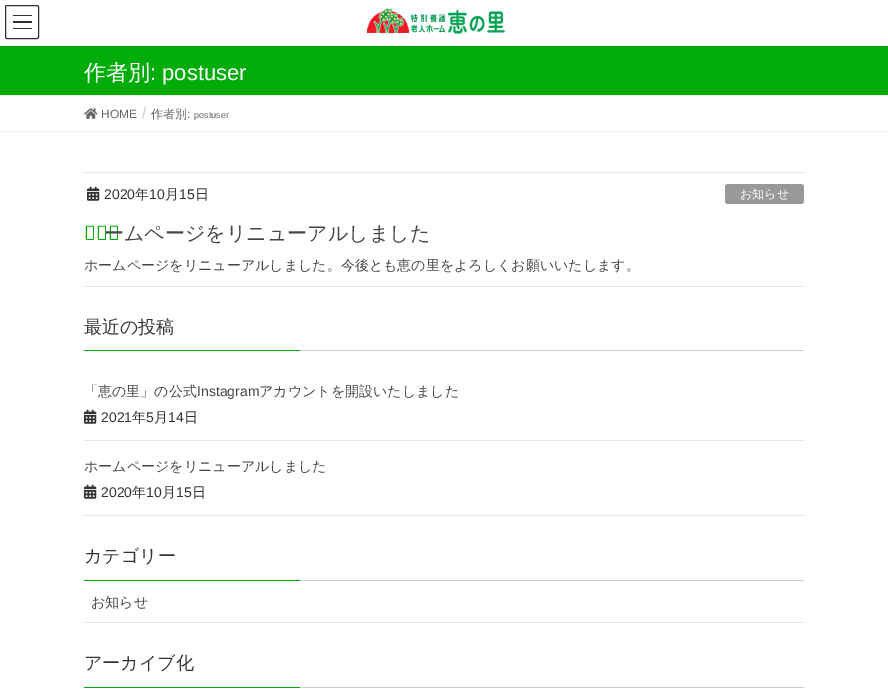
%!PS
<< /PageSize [888 689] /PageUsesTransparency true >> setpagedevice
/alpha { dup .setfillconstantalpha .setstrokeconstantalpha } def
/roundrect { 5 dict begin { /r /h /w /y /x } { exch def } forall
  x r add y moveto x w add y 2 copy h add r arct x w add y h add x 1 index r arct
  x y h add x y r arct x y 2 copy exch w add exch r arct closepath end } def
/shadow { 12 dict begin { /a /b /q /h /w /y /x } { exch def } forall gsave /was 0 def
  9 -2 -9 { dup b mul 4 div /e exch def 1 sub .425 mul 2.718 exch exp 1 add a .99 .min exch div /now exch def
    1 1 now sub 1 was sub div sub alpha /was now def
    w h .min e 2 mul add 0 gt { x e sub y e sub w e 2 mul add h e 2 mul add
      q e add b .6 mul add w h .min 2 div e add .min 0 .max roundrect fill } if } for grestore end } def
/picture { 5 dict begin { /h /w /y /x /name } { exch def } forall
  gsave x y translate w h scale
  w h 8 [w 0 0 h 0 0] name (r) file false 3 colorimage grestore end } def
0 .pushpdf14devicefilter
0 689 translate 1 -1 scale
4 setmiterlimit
1 setgray
0 0 888 689 rectfill
0 0.678 0.031 setrgbcolor
0 46 888 49 rectfill
gsave
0 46 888 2 rectclip
0 setgray
0 1 888 46 0 1.5 0.1 shadow
grestore
(img1.rgb) 367 8 138 26 picture
0.2 setgray
13 15 19 1 rectfill
13 21 19 2 rectfill
13 28 19 1 rectfill
5.5 5.5 33 33 1.5 roundrect stroke
0.933 setgray
0 95 888 1 rectfill
/WenQuanYiZenHei-Medium [22 0 0 -22 0 0] selectfont
1 setgray
84 80 moveto (作者別) show
/LiberationSans-Regular [22 0 0 -22 0 0] selectfont
150 80 moveto (: postuser) show
0.953 setgray
0 131 888 1 rectfill
(img2.rgb) 84 108 14 11 picture
/LiberationSans-Regular [12 0 0 -12 0 0] selectfont
0.4 setgray
101 118 moveto (HOME) show
/LiberationSans-Regular [16 0 0 -16 0 0] selectfont
0.8 setgray
142 118 moveto (/) show
/WenQuanYiZenHei-Medium [12 0 0 -12 0 0] selectfont
0.4 setgray
151 118 moveto (作者別) show
/LiberationSans-Regular [12 0 0 -12 0 0] selectfont
187 118 moveto (:) show
/LiberationSans-Regular [9 0 0 -9 0 0] selectfont
194 118 moveto (postuser) show
0.898 setgray
84 172 720 1 rectfill
84 286 720 1 rectfill
(img3.rgb) 87 186 13 15 picture
/LiberationSans-Regular [14 0 0 -14 0 0] selectfont
0.2 setgray
104 199 moveto (2020) show
/WenQuanYiZenHei-Medium [14 0 0 -14 0 0] selectfont
135 199 moveto (年) show
/LiberationSans-Regular [14 0 0 -14 0 0] selectfont
149 199 moveto (10) show
/WenQuanYiZenHei-Medium [14 0 0 -14 0 0] selectfont
165 199 moveto (月) show
/LiberationSans-Regular [14 0 0 -14 0 0] selectfont
179 199 moveto (15) show
/WenQuanYiZenHei-Medium [14 0 0 -14 0 0] selectfont
195 199 moveto (日) show
0.6 setgray
725 184 79 20 3 roundrect fill
/WenQuanYiZenHei-Medium [12 0 0 -12 0 0] selectfont
1 setgray
740 198 moveto (お知らせ) show
/NotoSans-Regular [20 0 0 -20 0 0] selectfont
0 0.678 0.031 setrgbcolor
84 240 moveto (ホ) show
/WenQuanYiZenHei-Medium [20 0 0 -20 0 0] selectfont
0.275 setgray
104 240 moveto (ームページをリニューアルしました) show
/WenQuanYiZenHei-Medium [14 0 0 -14 0 0] selectfont
84 270 moveto (ホームページをリニューアルしました。今後とも恵の里をよろしくお願いいたします。) show
0.8 setgray
300 350 504 1 rectfill
/WenQuanYiZenHei-Medium [18 0 0 -18 0 0] selectfont
0.2 setgray
84 333 moveto (最近の投稿) show
0 0.678 0.031 setrgbcolor
84 350 216 1 rectfill
0.898 setgray
84 440 720 1 rectfill
/WenQuanYiZenHei-Medium [14 0 0 -14 0 0] selectfont
0.275 setgray
84 396 moveto (「恵の里」の公式) show
/LiberationSans-Regular [14 0 0 -14 0 0] selectfont
197 396 moveto (Instagram) show
/WenQuanYiZenHei-Medium [14 0 0 -14 0 0] selectfont
259 396 moveto (アカウントを開設いたしました) show
(img3.rgb) 84 409 13 15 picture
/LiberationSans-Regular [14 0 0 -14 0 0] selectfont
0.2 setgray
101 422 moveto (2021) show
/WenQuanYiZenHei-Medium [14 0 0 -14 0 0] selectfont
132 422 moveto (年) show
/LiberationSans-Regular [14 0 0 -14 0 0] selectfont
146 422 moveto (5) show
/WenQuanYiZenHei-Medium [14 0 0 -14 0 0] selectfont
154 422 moveto (月) show
/LiberationSans-Regular [14 0 0 -14 0 0] selectfont
168 422 moveto (14) show
/WenQuanYiZenHei-Medium [14 0 0 -14 0 0] selectfont
184 422 moveto (日) show
0.898 setgray
84 515 720 1 rectfill
0.275 setgray
84 471 moveto (ホームページをリニューアルしました) show
(img3.rgb) 84 484 13 15 picture
/LiberationSans-Regular [14 0 0 -14 0 0] selectfont
0.2 setgray
101 497 moveto (2020) show
/WenQuanYiZenHei-Medium [14 0 0 -14 0 0] selectfont
132 497 moveto (年) show
/LiberationSans-Regular [14 0 0 -14 0 0] selectfont
146 497 moveto (10) show
/WenQuanYiZenHei-Medium [14 0 0 -14 0 0] selectfont
162 497 moveto (月) show
/LiberationSans-Regular [14 0 0 -14 0 0] selectfont
176 497 moveto (15) show
/WenQuanYiZenHei-Medium [14 0 0 -14 0 0] selectfont
192 497 moveto (日) show
0.8 setgray
300 580 504 1 rectfill
/WenQuanYiZenHei-Medium [18 0 0 -18 0 0] selectfont
0.2 setgray
84 562 moveto (カテゴリー) show
0 0.678 0.031 setrgbcolor
84 580 216 1 rectfill
0.898 setgray
84 622 720 1 rectfill
/WenQuanYiZenHei-Medium [14 0 0 -14 0 0] selectfont
0.275 setgray
91 607 moveto (お知らせ) show
0.8 setgray
300 687 504 1 rectfill
/WenQuanYiZenHei-Medium [18 0 0 -18 0 0] selectfont
0.2 setgray
84 669 moveto (アーカイブ化) show
0 0.678 0.031 setrgbcolor
84 687 216 1 rectfill
.poppdf14devicefilter showpage
